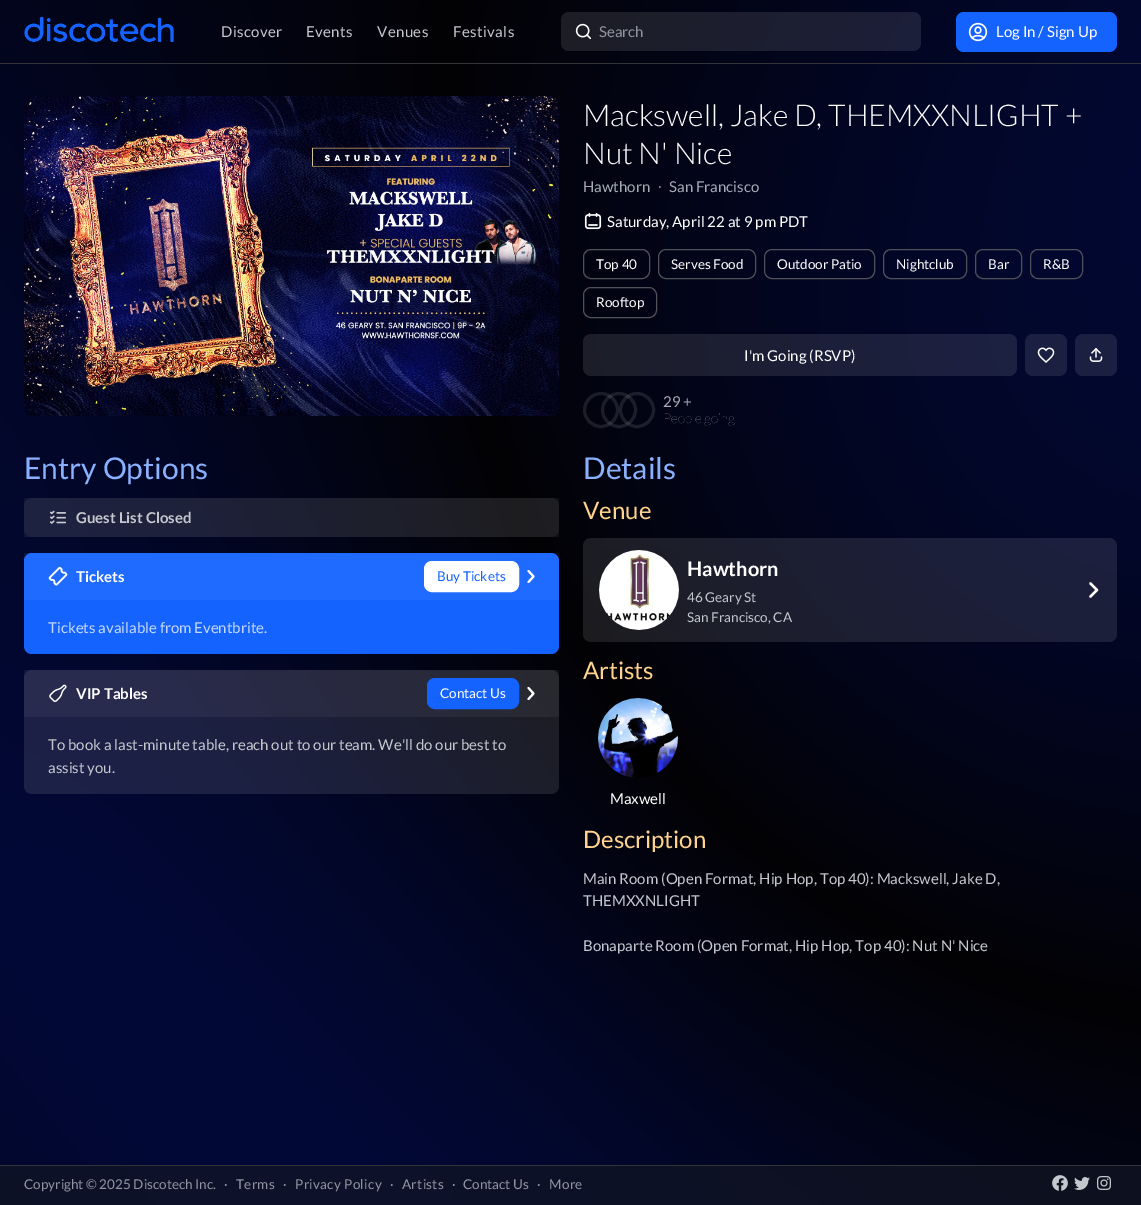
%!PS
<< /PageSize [1141 1205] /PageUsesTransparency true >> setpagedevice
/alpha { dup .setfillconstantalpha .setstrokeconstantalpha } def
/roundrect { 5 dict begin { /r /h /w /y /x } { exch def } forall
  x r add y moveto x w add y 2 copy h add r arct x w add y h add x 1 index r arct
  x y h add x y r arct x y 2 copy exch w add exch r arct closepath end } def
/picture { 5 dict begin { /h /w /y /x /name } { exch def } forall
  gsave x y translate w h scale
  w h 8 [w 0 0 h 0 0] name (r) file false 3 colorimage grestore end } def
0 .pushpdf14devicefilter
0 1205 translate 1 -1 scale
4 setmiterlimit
1 setgray
0 0 1141 1205 rectfill
(img1.rgb) 0 0 1141 1205 picture
0.2 0.2 0.22 setrgbcolor
0 63 1141 1 rectfill
(img2.rgb) 24 17 150 25 picture
/Lato-Regular [15 0 0 -15 0 0] selectfont
0.769 0.78 0.804 setrgbcolor
221 37 moveto 0.4 0 (Discover) ashow
306 37 moveto 0.4 0 (Events) ashow
377 37 moveto 0.4 0 (Venues) ashow
453 37 moveto 0.4 0 (Festivals) ashow
0.1 alpha
1 setgray
561 12 360 39 8 roundrect fill
1 alpha
(img3.rgb) 575 23 17 17 picture
0.565 0.584 0.631 setrgbcolor
599 37 moveto (Search) show
0.078 0.388 1 setrgbcolor
956 12 161 40 8 roundrect fill
(img4.rgb) 968 22 20 20 picture
1 setgray
996 37 moveto (Log In / Sign Up) show
(img5.rgb) 24 96 535 320 picture
/Lato-Light [30 0 0 -30 0 0] selectfont
583 126 moveto (Mackswell, Jake D, THEMXXNLIGHT +) show
583 164 moveto (Nut N' Nice) show
/Lato-Regular [15 0 0 -15 0 0] selectfont
0.651 0.667 0.706 setrgbcolor
583 192 moveto (Hawthorn) show
/LiberationSerif-Regular [15 0 0 -15 0 0] selectfont
658 192 moveto (∙) show
/Lato-Regular [15 0 0 -15 0 0] selectfont
669 192 moveto (San Francisco) show
(img6.rgb) 584 212 18 18 picture
1 setgray
607 227 moveto (Saturday, April 22 at 9 pm PDT) show
0.31 0.318 0.349 setrgbcolor
583.5 249.5 66 29 7.5 roundrect stroke
/Lato-Regular [13.5 0 0 -13.5 0 0] selectfont
1 setgray
596 269 moveto (Top 40) show
0.31 0.318 0.349 setrgbcolor
658.5 249.5 97 29 7.5 roundrect stroke
1 setgray
671 269 moveto (Serves Food) show
0.31 0.318 0.349 setrgbcolor
764.5 249.5 110 29 7.5 roundrect stroke
1 setgray
777 269 moveto (Outdoor Patio) show
0.31 0.318 0.349 setrgbcolor
883.5 249.5 83 29 7.5 roundrect stroke
1 setgray
896 269 moveto (Nightclub) show
0.31 0.318 0.349 setrgbcolor
975.5 249.5 46 29 7.5 roundrect stroke
1 setgray
988 269 moveto (Bar) show
0.31 0.318 0.349 setrgbcolor
1030.5 249.5 52 29 7.5 roundrect stroke
1 setgray
1043 269 moveto (R&B) show
0.31 0.318 0.349 setrgbcolor
583.5 287.5 73 30 7.5 roundrect stroke
1 setgray
596 307 moveto (Rooftop) show
0.1 alpha
583 334 434 42 8 roundrect fill
/Lato-Regular [15 0 0 -15 0 0] selectfont
1 alpha
744 361 moveto (I'm Going \(RSVP\)) show
0.106 0.125 0.259 setrgbcolor
1025 334 42 42 8 roundrect fill
(img7.rgb) 1037 347 18 16 picture
0.106 0.125 0.263 setrgbcolor
1075 334 42 42 8 roundrect fill
(img8.rgb) 1089 348 14 14 picture
0.1 alpha
1 setgray
3 setlinewidth
newpath 601 410 16.5 0 360 arc closepath stroke
newpath 619 410 16.5 0 360 arc closepath stroke
newpath 637 410 16.5 0 360 arc closepath stroke
1 alpha
0.651 0.667 0.706 setrgbcolor
663 407 moveto (29 +) show
/Lato-Thin [13.5 0 0 -13.5 0 0] selectfont
0.769 0.78 0.804 setrgbcolor
663 423 moveto (People going) show
/Lato-Regular [30 0 0 -30 0 0] selectfont
0.541 0.694 1 setrgbcolor
24 479 moveto (Entry Options) show
0.1 alpha
0.588 setgray
24 498 535 39 8 roundrect fill
0.05 alpha
1 setgray
24 498 535 39 rectfill
1 alpha
(img9.rgb) 50 510 16 14 picture
/Lato-Bold [15 0 0 -15 0 0] selectfont
0.769 0.78 0.804 setrgbcolor
76 523 moveto (Guest List Closed) show
0.078 0.388 1 setrgbcolor
24 553 535 101 8 roundrect fill
0.05 alpha
1 setgray
24 553 535 47 rectfill
1 alpha
(img10.rgb) 48 566 20 20 picture
76 582 moveto (Tickets) show
424.5 561.5 94 30 7.5 roundrect gsave fill grestore
1 setlinewidth
stroke
/Lato-Regular [13.5 0 0 -13.5 0 0] selectfont
0.078 0.388 1 setrgbcolor
437 581 moveto (Buy Tickets) show
1 setgray
2 setlinewidth
1 setlinecap
1 setlinejoin
newpath 528.5 582 moveto 533.5 576.5 lineto 528.5 571 lineto stroke
/Lato-Regular [15 0 0 -15 0 0] selectfont
0.769 0.847 1 setrgbcolor
48 633 moveto (Tickets available from Eventbrite.) show
0.1 alpha
1 setgray
24 670 535 124 8 roundrect fill
0.05 alpha
24 670 535 47 rectfill
1 alpha
(img11.rgb) 49 684 18 18 picture
/Lato-Bold [15 0 0 -15 0 0] selectfont
76 699 moveto (VIP Tables) show
0.078 0.388 1 setrgbcolor
427.5 678.5 91 30 7.5 roundrect gsave fill grestore
1 setlinewidth
0 setlinecap
0 setlinejoin
stroke
/Lato-Regular [13.5 0 0 -13.5 0 0] selectfont
1 setgray
440 698 moveto (Contact Us) show
2 setlinewidth
1 setlinecap
1 setlinejoin
newpath 528.5 699 moveto 533.5 693.5 lineto 528.5 688 lineto stroke
/Lato-Regular [15 0 0 -15 0 0] selectfont
0.769 0.78 0.804 setrgbcolor
48 750 moveto (To book a last-minute table, reach out to our team. We'll do our best to) show
48 773 moveto (assist you.) show
/Lato-Regular [30 0 0 -30 0 0] selectfont
0.541 0.694 1 setrgbcolor
583 479 moveto (Details) show
/Lato-Regular [24 0 0 -24 0 0] selectfont
1 0.824 0.553 setrgbcolor
583 519 moveto (Venue) show
0.1 alpha
1 setgray
583 538 534 104 8 roundrect fill
1 alpha
(img12.rgb) 599 550 80 80 picture
/Lato-Bold [20 0 0 -20 0 0] selectfont
687 576 moveto (Hawthorn) show
/Lato-Regular [13.5 0 0 -13.5 0 0] selectfont
0.769 0.78 0.804 setrgbcolor
687 602 moveto (46 Geary St) show
687 622 moveto (San Francisco, CA) show
1 setgray
2.4 setlinewidth
newpath 1090.5 596.5 moveto 1097 590 lineto 1090.5 583.5 lineto stroke
/Lato-Regular [24 0 0 -24 0 0] selectfont
1 0.824 0.553 setrgbcolor
583 679 moveto (Artists) show
(img13.rgb) 598 698 80 80 picture
/Lato-Regular [15 0 0 -15 0 0] selectfont
1 setgray
610 804 moveto (Maxwell) show
/Lato-Regular [24 0 0 -24 0 0] selectfont
1 0.824 0.553 setrgbcolor
583 848 moveto (Description) show
/Lato-Regular [15 0 0 -15 0 0] selectfont
0.769 0.78 0.804 setrgbcolor
583 884 moveto (Main Room \(Open Format, Hip Hop, Top 40\): Mackswell, Jake D,) show
583 906 moveto (THEMXXNLIGHT) show
583 951 moveto (Bonaparte Room \(Open Format, Hip Hop, Top 40\): Nut N' Nice) show
0.66 alpha
0.071 0.086 0.137 setrgbcolor
0 1166 1141 39 rectfill
1 alpha
0.2 0.2 0.22 setrgbcolor
0 1165 1141 1 rectfill
/Lato-Regular [13.5 0 0 -13.5 0 0] selectfont
0.565 0.584 0.631 setrgbcolor
24 1189 moveto (Copyright © 2025 Discotech Inc.) show
224 1189 moveto (·) show
236 1189 moveto 0.3 0 (Terms) ashow
283 1189 moveto (·) show
295 1189 moveto 0.3 0 (Privacy Policy) ashow
390 1189 moveto (·) show
402 1189 moveto 0.3 0 (Artists) ashow
452 1189 moveto (·) show
463 1189 moveto (Contact Us) show
537 1189 moveto (·) show
549 1189 moveto 0.3 0 (More) ashow
(img14.rgb) 1052 1175 16 16 picture
(img15.rgb) 1074 1177 16 13 picture
(img16.rgb) 1097 1176 14 14 picture
.poppdf14devicefilter showpage
